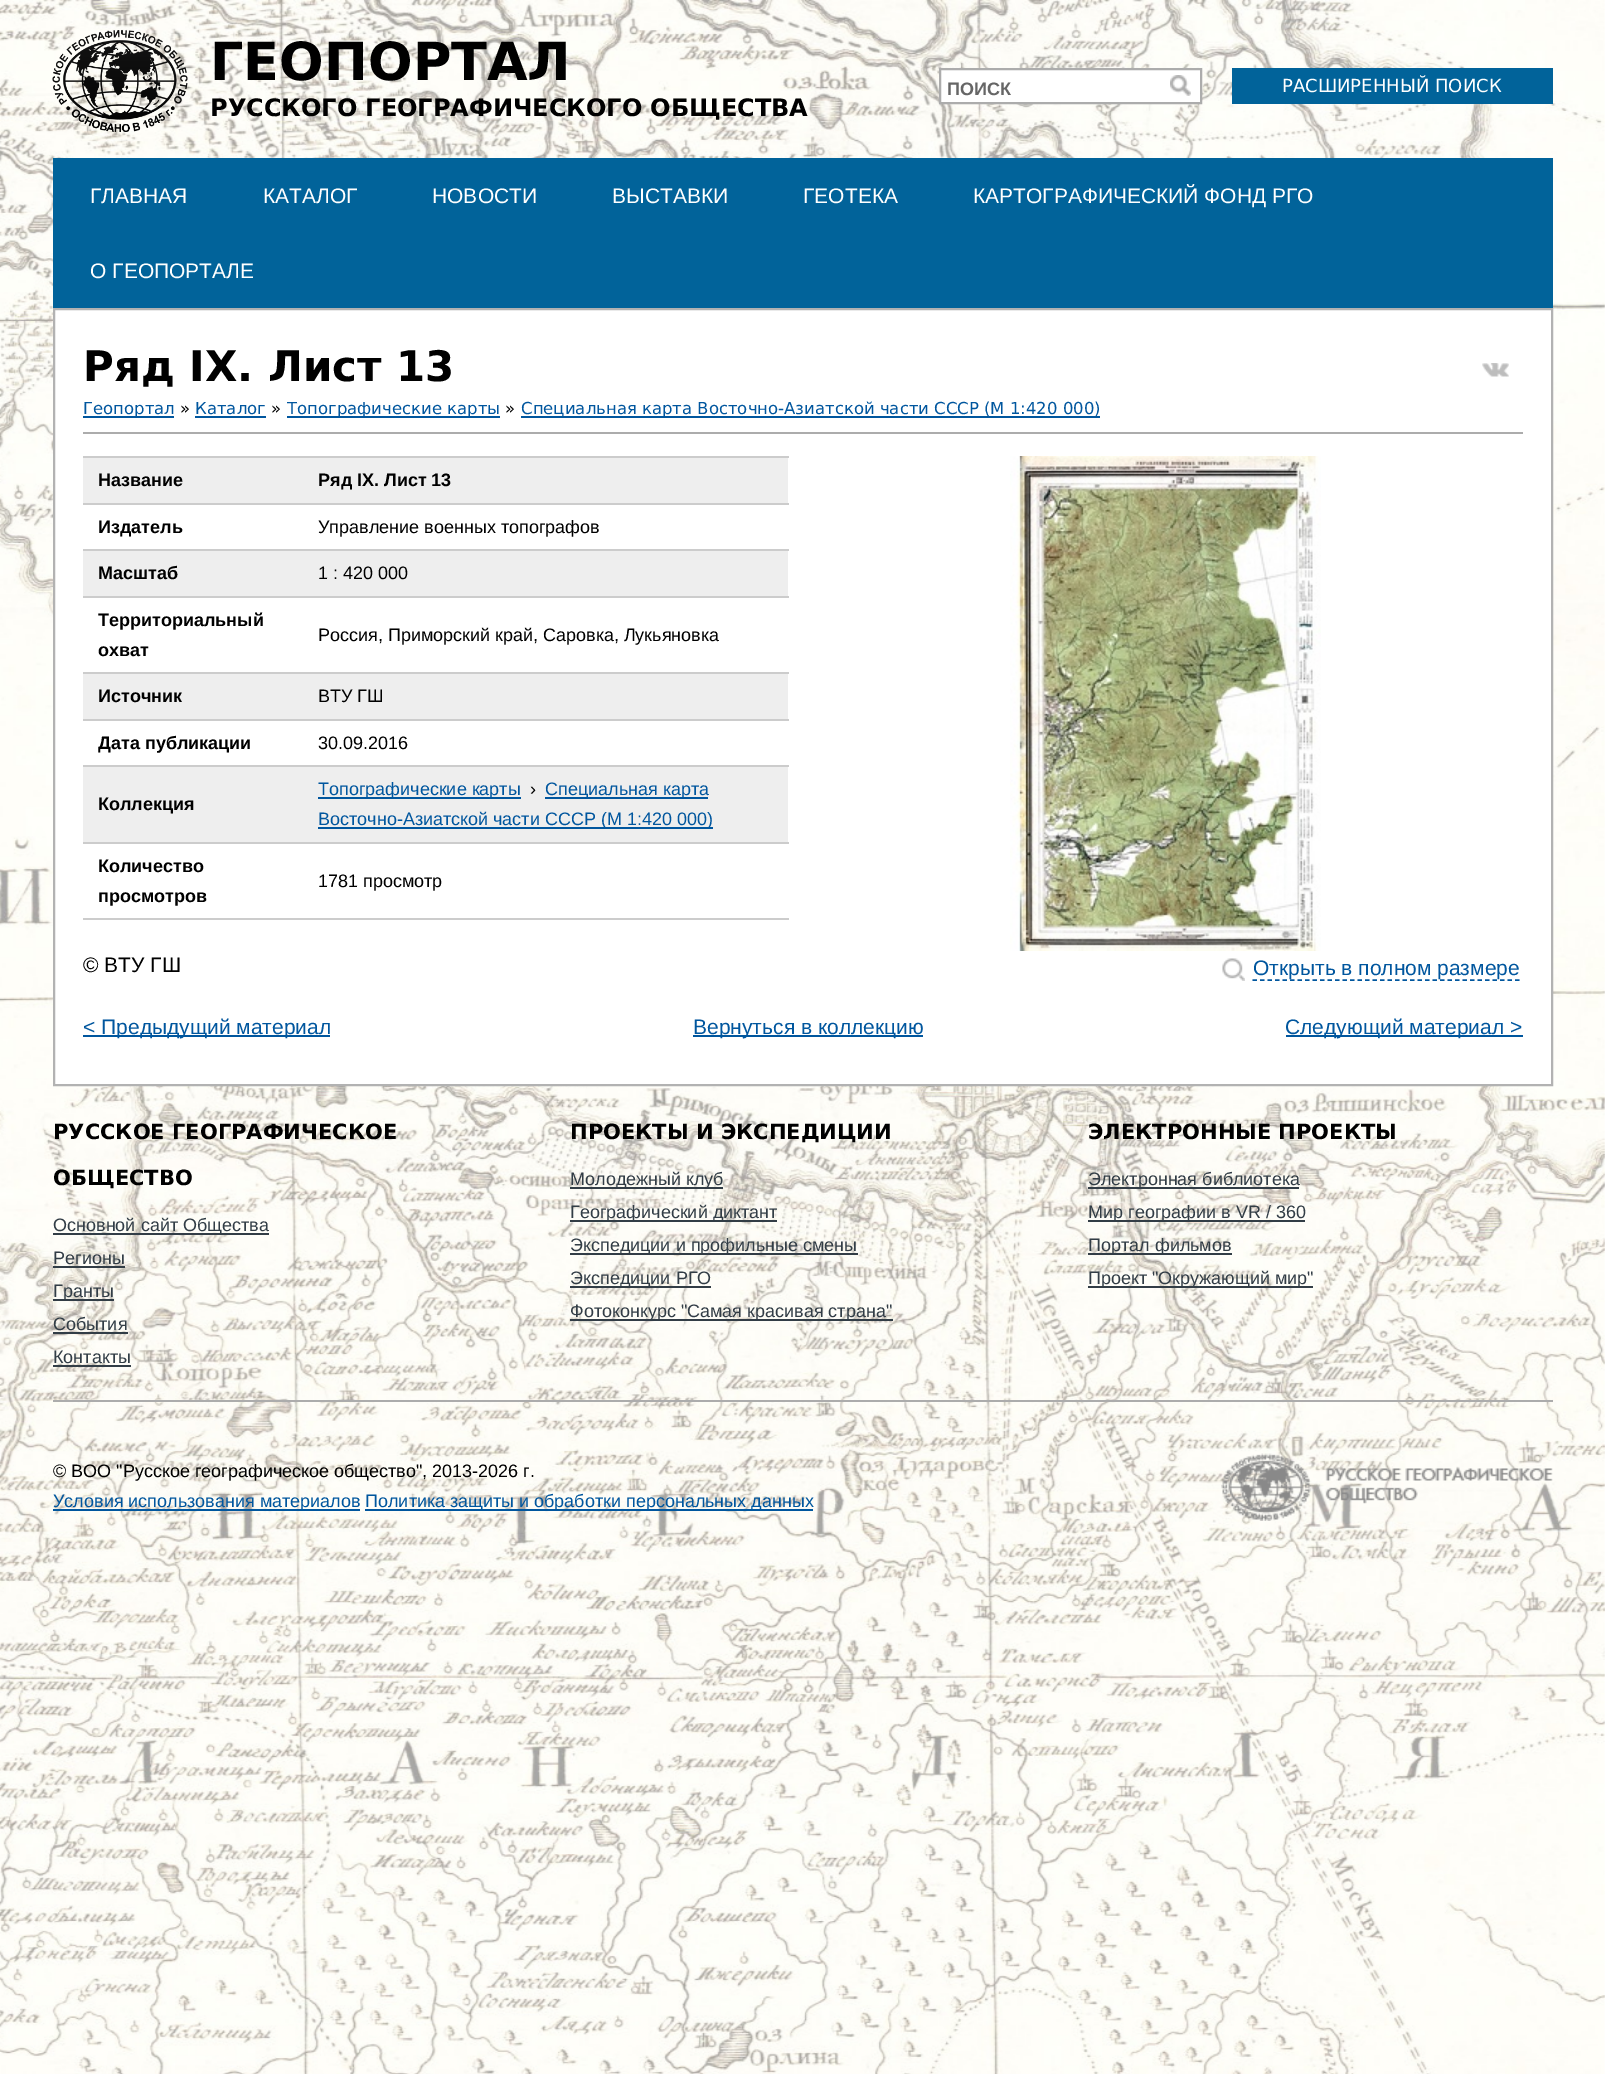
%!PS
<< /PageSize [1605 2074] >> setpagedevice
/picture { 5 dict begin { /h /w /y /x /name } { exch def } forall
  gsave x y translate w h scale
  w h 8 [w 0 0 h 0 0] name (r) file false 3 colorimage grestore end } def
0 2074 translate 1 -1 scale
4 setmiterlimit
1 setgray
0 0 1605 2074 rectfill
(img1.rgb) 0 0 1605 2074 picture
(img2.rgb) 52 30 136 102 picture
/DejaVuSans-Bold [52.5 0 0 -52.5 0 0] selectfont
0 setgray
210 80 moveto (ГЕОПОРТАЛ) show
/DejaVuSans-Bold [24 0 0 -24 0 0] selectfont
210 116 moveto (РУССКОГО ГЕОГРАФИЧЕСКОГО ОБЩЕСТВА) show
1 setgray
newpath 940 69 moveto 1201 69 lineto 1201 103 lineto 940 103 lineto closepath gsave fill grestore
0.675 setgray
2 setlinewidth
stroke
/LiberationSans-Bold [18 0 0 -18 0 0] selectfont
0.4 setgray
947 95 moveto (ПОИСК) show
(img3.rgb) 1170 75 21 21 picture
0.004 0.388 0.604 setrgbcolor
1232 68 321 36 rectfill
/DejaVuSans-Regular [18 0 0 -18 0 0] selectfont
1 setgray
1282 92 moveto (РАСШИРЕННЫЙ ПОИСК) show
0.004 0.388 0.604 setrgbcolor
53 158 1500 150 rectfill
/LiberationSans-Regular [21 0 0 -21 0 0] selectfont
1 setgray
90 203 moveto (ГЛАВНАЯ) show
263 203 moveto (КАТАЛОГ) show
432 203 moveto (НОВОСТИ) show
612 203 moveto (ВЫСТАВКИ) show
803 203 moveto (ГЕОТЕКА) show
973 203 moveto (КАРТОГРАФИЧЕСКИЙ ФОНД РГО) show
90 278 moveto (О ГЕОПОРТАЛЕ) show
newpath 54 309 moveto 1552 309 lineto 1552 1085 lineto 54 1085 lineto closepath gsave fill grestore
0.698 setgray
stroke
/DejaVuSans-Bold [42 0 0 -42 0 0] selectfont
0 setgray
83 381 moveto (Ряд IX. Лист 13) show
(img4.rgb) 1482 363 27 14 picture
0 0.337 0.62 setrgbcolor
83 416 91 2 rectfill
/DejaVuSans-Regular [16.5 0 0 -16.5 0 0] selectfont
83 414 moveto (Геопортал) show
0 setgray
180 414 moveto (») show
0 0.337 0.62 setrgbcolor
195 414 moveto (Каталог) show
195 416 71 2 rectfill
0 setgray
271 414 moveto (») show
0 0.337 0.62 setrgbcolor
287 416 213 2 rectfill
287 414 moveto (Топографические карты) show
0 setgray
505 414 moveto (») show
0 0.337 0.62 setrgbcolor
521 416 579 2 rectfill
521 414 moveto (Специальная карта Восточно-Азиатской части СССР \(М 1:420 000\)) show
0.675 setgray
83 432 1440 2 rectfill
0.933 setgray
83 458 705 45 rectfill
0.8 setgray
83 456 706 2 rectfill
/LiberationSans-Bold [18 0 0 -18 0 0] selectfont
0 setgray
98 486 moveto (Название) show
318 486 moveto (Ряд IX. Лист 13) show
0.8 setgray
83 503 706 2 rectfill
0 setgray
98 533 moveto (Издатель) show
/LiberationSans-Regular [18 0 0 -18 0 0] selectfont
318 533 moveto (Управление военных топографов) show
0.933 setgray
83 551 705 45 rectfill
0.8 setgray
83 549 706 2 rectfill
/LiberationSans-Bold [18 0 0 -18 0 0] selectfont
0 setgray
98 579 moveto (Масштаб) show
/LiberationSans-Regular [18 0 0 -18 0 0] selectfont
318 579 moveto (1 : 420 000) show
0.8 setgray
83 596 706 2 rectfill
/LiberationSans-Bold [18 0 0 -18 0 0] selectfont
0 setgray
98 626 moveto (Территориальный) show
98 656 moveto (охват) show
/LiberationSans-Regular [18 0 0 -18 0 0] selectfont
318 641 moveto (Россия, Приморский край, Саровка, Лукьяновка) show
0.933 setgray
83 674 705 45 rectfill
0.8 setgray
83 672 706 2 rectfill
/LiberationSans-Bold [18 0 0 -18 0 0] selectfont
0 setgray
98 702 moveto (Источник) show
/LiberationSans-Regular [18 0 0 -18 0 0] selectfont
318 702 moveto (ВТУ ГШ) show
0.8 setgray
83 719 706 2 rectfill
/LiberationSans-Bold [18 0 0 -18 0 0] selectfont
0 setgray
98 749 moveto (Дата публикации) show
/LiberationSans-Regular [18 0 0 -18 0 0] selectfont
318 749 moveto (30.09.2016) show
0.933 setgray
83 767 705 75 rectfill
0.8 setgray
83 765 706 2 rectfill
/LiberationSans-Bold [18 0 0 -18 0 0] selectfont
0 setgray
98 810 moveto (Коллекция) show
0 0.337 0.62 setrgbcolor
318 797 203 2 rectfill
/LiberationSans-Regular [18 0 0 -18 0 0] selectfont
318 795 moveto (Топографические карты) show
0 setgray
530 795 moveto (›) show
0 0.337 0.62 setrgbcolor
545 797 163 2 rectfill
545 795 moveto (Специальная карта) show
318 827 395 2 rectfill
318 825 moveto (Восточно-Азиатской части СССР \(М 1:420 000\)) show
0.8 setgray
83 842 706 2 rectfill
83 918 706 2 rectfill
/LiberationSans-Bold [18 0 0 -18 0 0] selectfont
0 setgray
98 872 moveto (Количество) show
98 902 moveto (просмотров) show
/LiberationSans-Regular [18 0 0 -18 0 0] selectfont
318 887 moveto (1781 просмотр) show
/LiberationSans-Regular [21 0 0 -21 0 0] selectfont
83 972 moveto (© ВТУ ГШ) show
(img5.rgb) 1010 456 311 495 picture
(img6.rgb) 1222 958 23 23 picture
0 0.337 0.62 setrgbcolor
1.5 setlinewidth
[4.5 3] 0 setdash
newpath 1252.5 980 moveto 1519.5 980 lineto stroke
1253 975 moveto (Открыть в полном размере) show
83 1035 247 2 rectfill
83 1034 moveto (< Предыдущий материал) show
693 1035 230 2 rectfill
693 1034 moveto (Вернуться в коллекцию) show
1286 1035 237 2 rectfill
1285 1034 moveto (Следующий материал >) show
0.675 setgray
53 1400 1500 2 rectfill
/DejaVuSans-Bold [21 0 0 -21 0 0] selectfont
0 setgray
53 1139 moveto (РУССКОЕ ГЕОГРАФИЧЕСКОЕ) show
53 1185 moveto (ОБЩЕСТВО) show
0.196 0.239 0.275 setrgbcolor
53 1233 216 2 rectfill
/LiberationSans-Regular [18 0 0 -18 0 0] selectfont
53 1231 moveto (Основной сайт Общества) show
53 1264 moveto (Регионы) show
53 1266 72 2 rectfill
53 1299 61 2 rectfill
53 1297 moveto (Гранты) show
53 1330 moveto (События) show
53 1332 75 2 rectfill
53 1363 moveto (Контакты) show
53 1365 78 2 rectfill
/DejaVuSans-Bold [21 0 0 -21 0 0] selectfont
0 setgray
570 1139 moveto (ПРОЕКТЫ И ЭКСПЕДИЦИИ) show
0.196 0.239 0.275 setrgbcolor
570 1187 153 2 rectfill
/LiberationSans-Regular [18 0 0 -18 0 0] selectfont
570 1185 moveto (Молодежный клуб) show
570 1220 207 2 rectfill
570 1218 moveto (Географический диктант) show
570 1253 288 2 rectfill
570 1251 moveto (Экспедиции и профильные смены) show
570 1286 141 2 rectfill
570 1284 moveto (Экспедиции РГО) show
570 1319 323 2 rectfill
570 1317 moveto (Фотоконкурс "Самая красивая страна") show
/DejaVuSans-Bold [21 0 0 -21 0 0] selectfont
0 setgray
1088 1139 moveto (ЭЛЕКТРОННЫЕ ПРОЕКТЫ) show
0.196 0.239 0.275 setrgbcolor
1088 1187 211 2 rectfill
/LiberationSans-Regular [18 0 0 -18 0 0] selectfont
1088 1185 moveto (Электронная библиотека) show
1088 1220 217 2 rectfill
1088 1218 moveto (Мир географии в VR / 360) show
1088 1253 144 2 rectfill
1088 1251 moveto (Портал фильмов) show
1088 1286 225 2 rectfill
1088 1284 moveto (Проект "Окружающий мир") show
gsave
53 1424 1500 127 rectclip
0 setgray
53 1477 moveto (© ВОО "Русское географическое общество", 2013-2026 г.) show
grestore
0 0.337 0.62 setrgbcolor
53 1509 307 2 rectfill
53 1507 moveto (Условия использования материалов) show
365 1509 448 2 rectfill
365 1507 moveto (Политика защиты и обработки персональных данных) show
(img7.rgb) 1221 1453 332 68 picture
showpage
